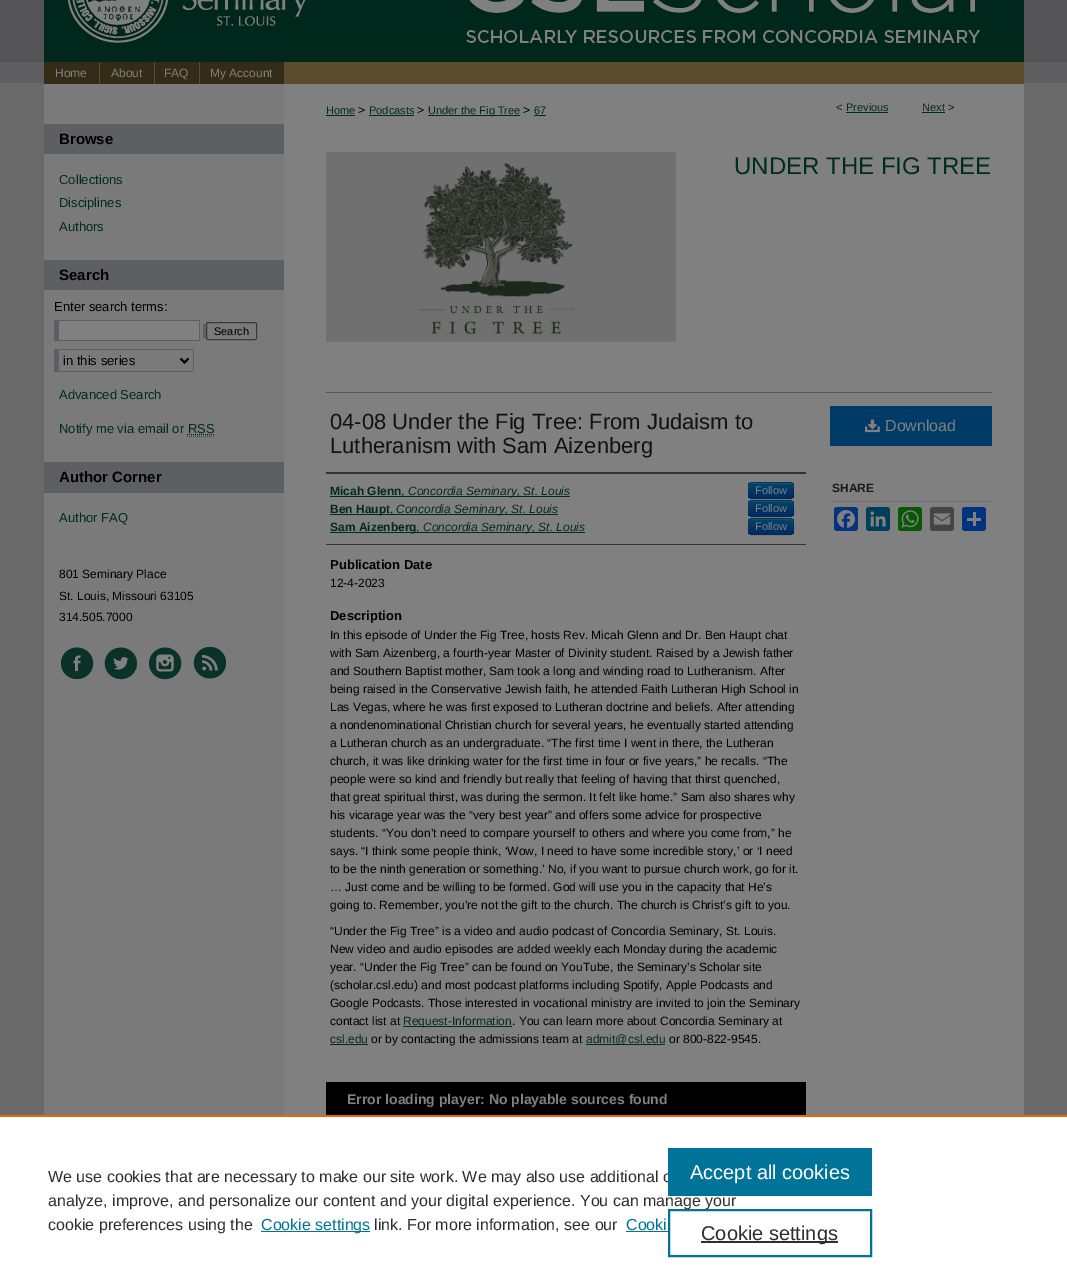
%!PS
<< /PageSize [1067 1285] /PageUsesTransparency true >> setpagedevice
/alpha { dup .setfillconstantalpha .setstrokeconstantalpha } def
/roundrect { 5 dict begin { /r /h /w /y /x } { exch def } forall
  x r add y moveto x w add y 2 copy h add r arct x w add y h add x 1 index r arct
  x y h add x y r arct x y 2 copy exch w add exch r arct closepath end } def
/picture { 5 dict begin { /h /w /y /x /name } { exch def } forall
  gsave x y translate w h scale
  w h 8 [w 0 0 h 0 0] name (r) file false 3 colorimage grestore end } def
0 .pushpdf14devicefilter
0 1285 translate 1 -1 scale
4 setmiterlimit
0.412 0.412 0.416 setrgbcolor
0 0 1067 1285 rectfill
(img1.rgb) 0 0 1067 83 picture
(img2.rgb) 44 0 280 62 picture
(img3.rgb) 324 0 700 62 picture
0.357 0.298 0.176 setrgbcolor
284 62 740 22 rectfill
0.2 0.173 0.098 setrgbcolor
44 62 55 22 rectfill
0.357 0.298 0.176 setrgbcolor
99 62 1 22 rectfill
/LiberationSans-Regular [12 0 0 -12 0 0] selectfont
0.502 setgray
55 77 moveto (Home) show
0.2 0.173 0.098 setrgbcolor
100 62 54 22 rectfill
0.357 0.298 0.176 setrgbcolor
154 62 1 22 rectfill
0.502 setgray
111 77 moveto (About) show
0.2 0.173 0.098 setrgbcolor
155 62 44 22 rectfill
0.357 0.298 0.176 setrgbcolor
199 62 1 22 rectfill
0.502 setgray
164 77 moveto (FAQ) show
0.2 0.173 0.098 setrgbcolor
200 62 84 22 rectfill
0.502 setgray
210 77 moveto (My Account) show
0.478 setgray
44 84 240 1031 rectfill
0.502 setgray
284 84 740 1031 rectfill
0.369 0.373 0.376 setrgbcolor
44 124 240 30 rectfill
/LiberationSans-Bold [15 0 0 -15 0 0] selectfont
0 setgray
59 144 moveto (Browse) show
/LiberationSans-Regular [13 0 0 -13 0 0] selectfont
0 0.173 0.122 setrgbcolor
59 184 moveto (Collections) show
59 207 moveto (Disciplines) show
59 231 moveto (Authors) show
0.369 0.373 0.376 setrgbcolor
44 260 240 30 rectfill
/LiberationSans-Bold [15 0 0 -15 0 0] selectfont
0 setgray
59 280 moveto (Search) show
/LiberationSans-Regular [13 0 0 -13 0 0] selectfont
54 311 moveto (Enter search terms:) show
0.369 0.373 0.376 setrgbcolor
54 320 146 21 rectfill
203 324 3 14 rectfill
0.502 setgray
59 321 140 19 rectfill
0.231 setgray
206.5 322.5 50 17 1.5 roundrect stroke
/LiberationSans-Regular [11 0 0 -11 0 0] selectfont
0 setgray
214 335 moveto (Search) show
0.369 0.373 0.376 setrgbcolor
54 349 140 1 rectfill
193 349 1 23 rectfill
54 371 140 1 rectfill
54 349 5 23 rectfill
0 setgray
2 setlinewidth
newpath 180.5 358.5 moveto 184.5 362.5 lineto 188.5 358.5 lineto stroke
/LiberationSans-Regular [13 0 0 -13 0 0] selectfont
63 365 moveto (in this series) show
0 0.173 0.122 setrgbcolor
59 399 moveto (Advanced Search) show
59 433 moveto (Notify me via email or RSS) show
1 setlinewidth
[1 1] 0 setdash
newpath 187 434.5 moveto 214 434.5 lineto stroke
0.302 setgray
newpath 187 436.5 moveto 214 436.5 lineto stroke
0.369 0.373 0.376 setrgbcolor
44 462 240 31 rectfill
/LiberationSans-Bold [15 0 0 -15 0 0] selectfont
0 setgray
59 482 moveto (Author Corner) show
/LiberationSans-Regular [13 0 0 -13 0 0] selectfont
0 0.173 0.122 setrgbcolor
59 522 moveto (Author FAQ) show
/LiberationSans-Regular [12 0 0 -12 0 0] selectfont
0 setgray
59 578 moveto (801 Seminary Place) show
59 600 moveto (St. Louis, Missouri 63105) show
59 621 moveto (314.505.7000) show
(img4.rgb) 61 647 33 32 picture
(img5.rgb) 104 647 33 33 picture
(img6.rgb) 149 647 33 33 picture
(img7.rgb) 193 647 33 32 picture
/LiberationSans-Regular [11 0 0 -11 0 0] selectfont
0 0.173 0.122 setrgbcolor
326 114 moveto (Home) show
326 115 29 1 rectfill
/LiberationSans-Regular [12 0 0 -12 0 0] selectfont
0 setgray
358 114 moveto (>) show
/LiberationSans-Regular [11 0 0 -11 0 0] selectfont
0 0.173 0.122 setrgbcolor
369 114 moveto (Podcasts) show
369 115 45 1 rectfill
/LiberationSans-Regular [12 0 0 -12 0 0] selectfont
0 setgray
417 114 moveto (>) show
0 0.173 0.122 setrgbcolor
428 115 92 1 rectfill
/LiberationSans-Regular [11 0 0 -11 0 0] selectfont
428 114 moveto (Under the Fig Tree) show
/LiberationSans-Regular [12 0 0 -12 0 0] selectfont
0 setgray
523 114 moveto (>) show
/LiberationSans-Regular [11 0 0 -11 0 0] selectfont
0 0.173 0.122 setrgbcolor
534 114 moveto (67) show
534 115 12 1 rectfill
0.067 setgray
836 111 moveto (<) show
0 0.173 0.122 setrgbcolor
846 111 moveto (Previous) show
846 112 42 1 rectfill
922 111 moveto (Next) show
922 112 23 1 rectfill
0.067 setgray
948 111 moveto (>) show
(img8.rgb) 326 152 350 190 picture
/LiberationSans-Regular [24 0 0 -24 0 0] selectfont
0 0.173 0.122 setrgbcolor
734 174 moveto (UNDER THE FIG TREE) show
0.333 setgray
326 392 666 1 rectfill
/LiberationSans-Regular [22 0 0 -22 0 0] selectfont
0.067 setgray
330 429 moveto (04-08 Under the Fig Tree: From Judaism to) show
330 453 moveto (Lutheranism with Sam Aizenberg) show
0.2 setgray
326 472 480 2 rectfill
326 544 480 1 rectfill
/LiberationSans-Bold [12 0 0 -12 0 0] selectfont
0 0.173 0.122 setrgbcolor
330 495 moveto (Micah Glenn) show
330 496 240 1 rectfill
/LiberationSans-Regular [12 0 0 -12 0 0] selectfont
401 495 moveto (,) show
/LiberationSans-Italic [12 0 0 -12 0 0] selectfont
408 495 moveto (Concordia Seminary, St. Louis) show
0 0.227 0.4 setrgbcolor
748 482 46 17 4 roundrect fill
gsave
748 482 46 17 4 roundrect clip newpath
gsave newpath 748 483 moveto 794 483 lineto 794 498 lineto 748 498 lineto closepath clip newpath
<< /ShadingType 2 /ColorSpace /DeviceRGB /Coords [771 483 771 498] /Extend [true true] /Function << /FunctionType 2 /Domain [0 1] /C0 [0 0.267 0.4] /C1 [0 0.169 0.4] /N 1 >> >> shfill grestore
grestore
0.2 alpha
0.502 setgray
newpath 752 484 moveto 785 484 lineto 792 484 793 484 793 490 curveto 793 496 lineto 793 489 lineto 793 482 791 483 784 483 curveto 758 483 lineto 751 483 749 482 749 489 curveto 749 497 lineto 749 494 747 484 752 484 curveto closepath fill
0.25 alpha
0 setgray
[] 0 setdash
newpath 792.5 497.5 moveto 792 498 791 498.5 790 498.5 curveto 752 498.5 lineto 751 498.5 750 498 749.5 497.5 curveto stroke
0.1 alpha
newpath 749.5 497.5 moveto 748 495.5 748.5 492.5 748.5 490.5 curveto 748.5 481.5 749 482.5 758.5 482.5 curveto 783.5 482.5 lineto 793 482.5 793.5 481.5 793.5 490.5 curveto 793.5 492.5 794 495.5 792.5 497.5 curveto stroke
/LiberationSans-Regular [11 0 0 -11 0 0] selectfont
1 alpha
0.502 setgray
755 494 moveto (Follow) show
0 0.173 0.122 setrgbcolor
330 514 228 1 rectfill
/LiberationSans-Bold [12 0 0 -12 0 0] selectfont
330 513 moveto (Ben Haupt) show
/LiberationSans-Regular [12 0 0 -12 0 0] selectfont
390 513 moveto (,) show
/LiberationSans-Italic [12 0 0 -12 0 0] selectfont
396 513 moveto (Concordia Seminary, St. Louis) show
0 0.227 0.4 setrgbcolor
748 500 46 17 4 roundrect fill
gsave
748 500 46 17 4 roundrect clip newpath
gsave newpath 748 501 moveto 794 501 lineto 794 516 lineto 748 516 lineto closepath clip newpath
<< /ShadingType 2 /ColorSpace /DeviceRGB /Coords [771 501 771 516] /Extend [true true] /Function << /FunctionType 2 /Domain [0 1] /C0 [0 0.267 0.4] /C1 [0 0.169 0.4] /N 1 >> >> shfill grestore
grestore
0.2 alpha
0.502 setgray
newpath 752 502 moveto 785 502 lineto 792 502 793 502 793 508 curveto 793 514 lineto 793 507 lineto 793 500 791 501 784 501 curveto 758 501 lineto 751 501 749 500 749 507 curveto 749 515 lineto 749 512 747 502 752 502 curveto closepath fill
0.25 alpha
0 setgray
newpath 792.5 515.5 moveto 792 516 791 516.5 790 516.5 curveto 752 516.5 lineto 751 516.5 750 516 749.5 515.5 curveto stroke
0.1 alpha
newpath 749.5 515.5 moveto 748 513.5 748.5 510.5 748.5 508.5 curveto 748.5 499.5 749 500.5 758.5 500.5 curveto 783.5 500.5 lineto 793 500.5 793.5 499.5 793.5 508.5 curveto 793.5 510.5 794 513.5 792.5 515.5 curveto stroke
/LiberationSans-Regular [11 0 0 -11 0 0] selectfont
1 alpha
0.502 setgray
755 512 moveto (Follow) show
0 0.173 0.122 setrgbcolor
330 532 255 1 rectfill
/LiberationSans-Bold [12 0 0 -12 0 0] selectfont
330 531 moveto (Sam Aizenberg) show
/LiberationSans-Regular [12 0 0 -12 0 0] selectfont
416 531 moveto (,) show
/LiberationSans-Italic [12 0 0 -12 0 0] selectfont
423 531 moveto (Concordia Seminary, St. Louis) show
0 0.227 0.4 setrgbcolor
748 518 46 17 4 roundrect fill
gsave
748 518 46 17 4 roundrect clip newpath
gsave newpath 748 519 moveto 794 519 lineto 794 534 lineto 748 534 lineto closepath clip newpath
<< /ShadingType 2 /ColorSpace /DeviceRGB /Coords [771 519 771 534] /Extend [true true] /Function << /FunctionType 2 /Domain [0 1] /C0 [0 0.267 0.4] /C1 [0 0.169 0.4] /N 1 >> >> shfill grestore
grestore
0.2 alpha
0.502 setgray
newpath 752 520 moveto 785 520 lineto 792 520 793 520 793 526 curveto 793 532 lineto 793 525 lineto 793 518 791 519 784 519 curveto 758 519 lineto 751 519 749 518 749 525 curveto 749 533 lineto 749 530 747 520 752 520 curveto closepath fill
0.25 alpha
0 setgray
newpath 792.5 533.5 moveto 792 534 791 534.5 790 534.5 curveto 752 534.5 lineto 751 534.5 750 534 749.5 533.5 curveto stroke
0.1 alpha
newpath 749.5 533.5 moveto 748 531.5 748.5 528.5 748.5 526.5 curveto 748.5 517.5 749 518.5 758.5 518.5 curveto 783.5 518.5 lineto 793 518.5 793.5 517.5 793.5 526.5 curveto 793.5 528.5 794 531.5 792.5 533.5 curveto stroke
/LiberationSans-Regular [11 0 0 -11 0 0] selectfont
1 alpha
0.502 setgray
755 530 moveto (Follow) show
/LiberationSans-Bold [13 0 0 -13 0 0] selectfont
0 setgray
330 569 moveto (Publication Date) show
/LiberationSans-Regular [12 0 0 -12 0 0] selectfont
330 587 moveto (12-4-2023) show
/LiberationSans-Bold [13 0 0 -13 0 0] selectfont
330 620 moveto (Description) show
/LiberationSans-Regular [12 0 0 -12 0 0] selectfont
330 639 moveto (In this episode of Under the Fig Tree, hosts Rev. Micah Glenn and Dr. Ben Haupt chat) show
330 657 moveto (with Sam Aizenberg, a fourth-year Master of Divinity student. Raised by a Jewish father) show
330 675 moveto (and Southern Baptist mother, Sam took a long and winding road to Lutheranism. After) show
330 693 moveto (being raised in the Conservative Jewish faith, he attended Faith Lutheran High School in) show
330 711 moveto (Las Vegas, where he was first exposed to Lutheran doctrine and beliefs. After attending) show
330 729 moveto (a nondenominational Christian church for several years, he eventually started attending) show
330 747 moveto (a Lutheran church as an undergraduate. “The first time I went in there, the Lutheran) show
330 765 moveto (church, it was like drinking water for the first time in four or five years,” he recalls. “The) show
330 783 moveto (people were so kind and friendly but really that feeling of having that thirst quenched,) show
330 801 moveto (that great spiritual thirst, was during the sermon. It felt like home.” Sam also shares why) show
330 819 moveto (his vicarage year was the “very best year” and offers some advice for prospective) show
330 837 moveto (students. “You don’t need to compare yourself to others and where you come from,” he) show
330 855 moveto (says. “I think some people think, ‘Wow, I need to have some incredible story,’ or ‘I need) show
330 873 moveto (to be the ninth generation or something.’ No, if you want to pursue church work, go for it.) show
330 891 moveto (… Just come and be willing to be formed. God will use you in the capacity that He’s) show
330 909 moveto (going to. Remember, you’re not the gift to the church. The church is Christ’s gift to you.) show
330 935 moveto (“Under the Fig Tree” is a video and audio podcast of Concordia Seminary, St. Louis.) show
330 953 moveto (New video and audio episodes are added weekly each Monday during the academic) show
330 971 moveto (year. “Under the Fig Tree” can be found on YouTube, the Seminary’s Scholar site) show
330 989 moveto (\(scholar.csl.edu\) and most podcast platforms including Spotify, Apple Podcasts and) show
330 1007 moveto (Google Podcasts. Those interested in vocational ministry are invited to join the Seminary) show
330 1025 moveto (contact list at) show
0 0.173 0.122 setrgbcolor
403 1026 109 1 rectfill
403 1025 moveto (Request-Information) show
0 setgray
512 1025 moveto (. You can learn more about Concordia Seminary at) show
0 0.173 0.122 setrgbcolor
330 1043 moveto (csl.edu) show
330 1044 38 1 rectfill
0 setgray
371 1043 moveto (or by contacting the admissions team at) show
0 0.173 0.122 setrgbcolor
586 1044 79 1 rectfill
586 1043 moveto (admit@csl.edu) show
0 setgray
669 1043 moveto (or 800-822-9545.) show
326 1082 480 33 rectfill
/LiberationSans-Bold [14 0 0 -14 0 0] selectfont
0.502 setgray
347 1104 moveto (Error loading player: No playable sources found) show
0 0.227 0.4 setrgbcolor
830 406 162 40 rectfill
(img9.rgb) 865 419 15 14 picture
/LiberationSans-Regular [16 0 0 -16 0 0] selectfont
0.502 setgray
885 431 moveto (Download) show
0.435 setgray
832 501 160 1 rectfill
/LiberationSans-Bold [12 0 0 -12 0 0] selectfont
0.102 setgray
832 492 moveto (SHARE) show
0.016 0.2 0.502 setrgbcolor
834 507 24 24 3 roundrect fill
(img10.rgb) 837 510 18 18 picture
0 0.243 0.357 setrgbcolor
866 507 24 24 3 roundrect fill
(img11.rgb) 870 511 16 16 picture
0.035 0.345 0.02 setrgbcolor
898 507 24 24 3 roundrect fill
(img12.rgb) 901 510 18 18 picture
0.267 0.271 0.282 setrgbcolor
930 507 24 24 3 roundrect fill
(img13.rgb) 933 513 18 12 picture
0.004 0.2 0.502 setrgbcolor
962 507 24 24 3 roundrect fill
0.502 setgray
973 512 3 14 rectfill
967 518 14 3 rectfill
1 setgray
0 1117 1067 168 rectfill
0.922 0.396 0 setrgbcolor
0 1115 1067 2 rectfill
/LiberationSans-Regular [16 0 0 -16 0 0] selectfont
0.18 setgray
48 1182 moveto (We use cookies that are necessary to make our site work. We may also use additional c) show
48 1206 moveto (analyze, improve, and personalize our content and your digital experience. You can manage your) show
48 1230 moveto (cookie preferences using the) show
0 0.451 0.596 setrgbcolor
261 1231 109 1 rectfill
261 1230 moveto (Cookie settings) show
0.18 setgray
374 1230 moveto (link. For more information, see our) show
0 0.451 0.596 setrgbcolor
626 1230 moveto (Cooki) show
626 1231 42 1 rectfill
668 1148 204 48 rectfill
/LiberationSans-Regular [20 0 0 -20 0 0] selectfont
1 setgray
690 1179 moveto (Accept all cookies) show
0 0.451 0.596 setrgbcolor
2 setlinewidth
669 1210 202 46 rectstroke
0.18 setgray
701 1241 137 2 rectfill
701 1240 moveto (Cookie settings) show
.poppdf14devicefilter showpage
